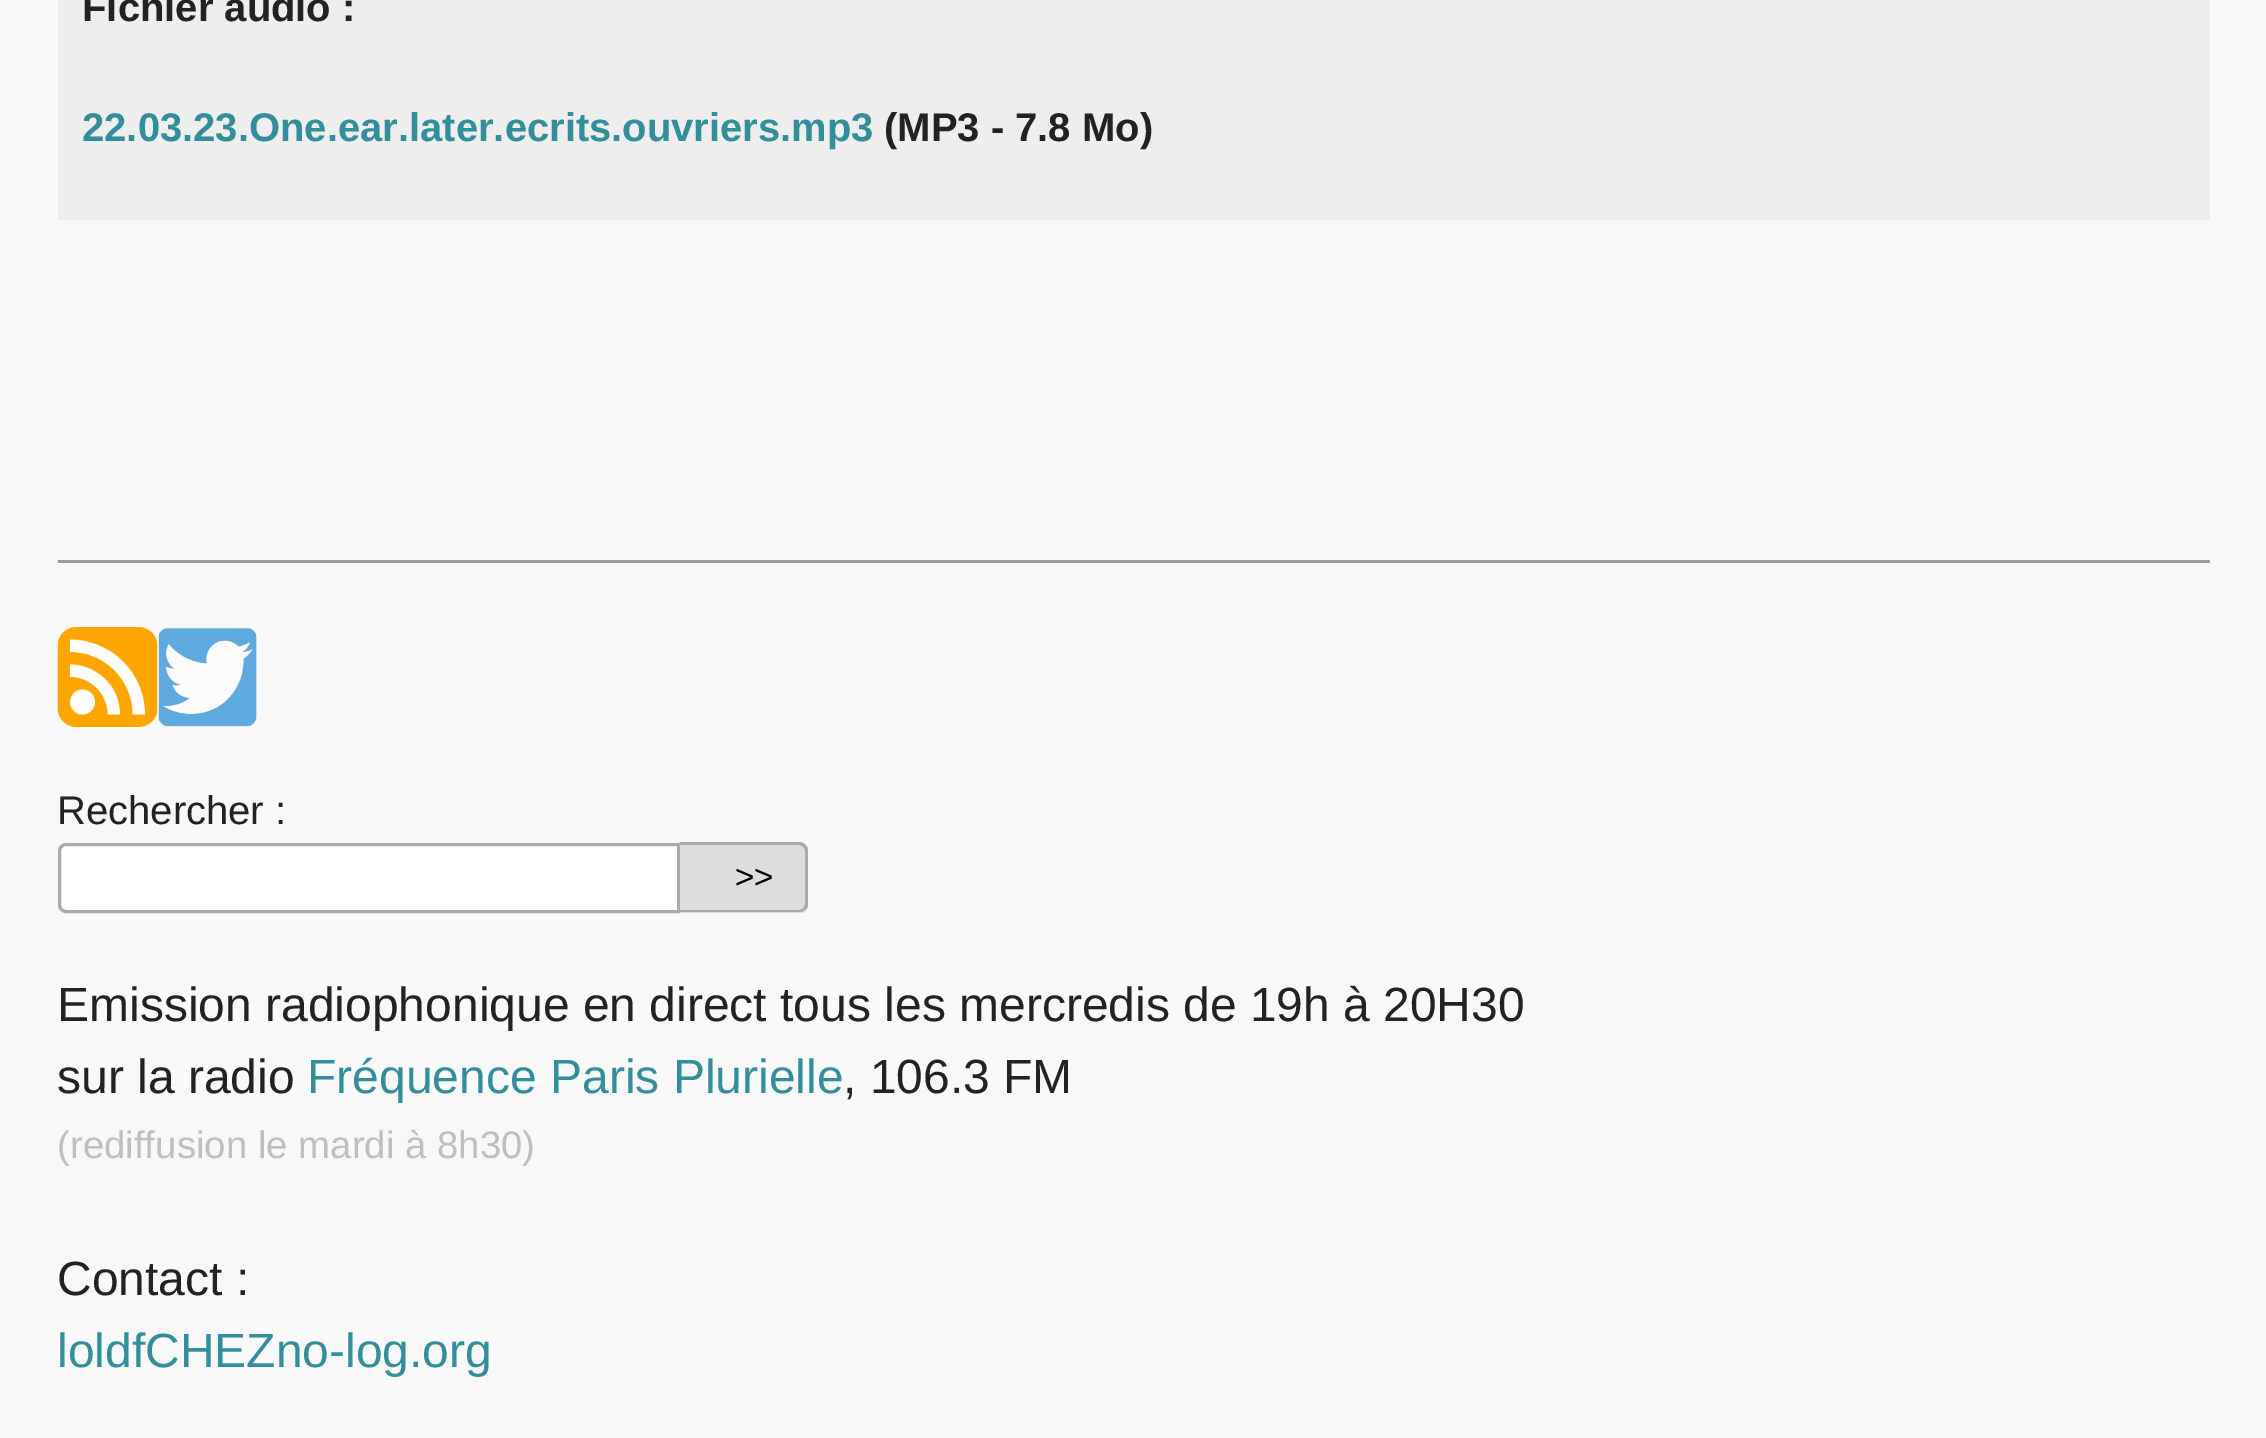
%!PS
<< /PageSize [2266 1438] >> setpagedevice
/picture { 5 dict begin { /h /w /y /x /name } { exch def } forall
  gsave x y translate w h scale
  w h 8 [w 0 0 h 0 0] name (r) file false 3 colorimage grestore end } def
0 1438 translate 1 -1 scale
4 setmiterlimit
0.973 setgray
0 0 2266 1438 rectfill
0.933 setgray
58 0 2152 220 rectfill
/LiberationSans-Bold [40 0 0 -40 0 0] selectfont
0.133 setgray
82 21 moveto (Fichier audio :) show
0.192 0.557 0.604 setrgbcolor
82 141 moveto (22.03.23.One.ear.later.ecrits.ouvriers.mp3) show
0.133 setgray
884 141 moveto (\(MP3 - 7.8 Mo\)) show
0.6 setgray
58 560 2152 3 rectfill
(img1.rgb) 57 627 101 100 picture
(img2.rgb) 158 628 99 99 picture
/LiberationSans-Regular [40 0 0 -40 0 0] selectfont
0.133 setgray
57 824 moveto (Rechercher :) show
1 setgray
newpath 66 844.5 moveto 678.5 844.5 lineto 678.5 911.5 lineto 66 911.5 lineto 62.5 911.5 59.5 908.5 59.5 905 curveto 59.5 851 lineto 59.5 847.5 62.5 844.5 66 844.5 curveto closepath gsave fill grestore
0.667 setgray
3 setlinewidth
stroke
0.867 setgray
newpath 680 843 moveto 800 843 lineto 804.5 843 808 846.5 808 851 curveto 808 905 lineto 808 909.5 804.5 913 800 913 curveto 680 913 lineto closepath fill
0.667 setgray
newpath 680 842 moveto 799 842 lineto 804 842 808 846 808 851 curveto 808 904 lineto 808 909 804 912 799 912 curveto 680 912 lineto closepath 680 845 moveto 799 845 lineto 802 845 805 848 805 851 curveto 805 904 lineto 805 907 802 910 799 910 curveto 680 910 lineto closepath eofill
/LiberationSans-Regular [33 0 0 -33 0 0] selectfont
0 setgray
735 888 moveto (>>) show
/LiberationSans-Regular [48 0 0 -48 0 0] selectfont
0.133 setgray
57 1021 moveto (Emission radiophonique en direct tous les mercredis de 19h à 20H30) show
57 1093 moveto (sur la radio) show
0.192 0.557 0.604 setrgbcolor
307 1093 moveto (Fréquence Paris Plurielle) show
0.133 setgray
843 1093 moveto (, 106.3 FM) show
/LiberationSans-Regular [38.4 0 0 -38.4 0 0] selectfont
0.745 setgray
57 1158 moveto (\(rediffusion le mardi à 8h30\)) show
/LiberationSans-Regular [48 0 0 -48 0 0] selectfont
0.133 setgray
57 1295 moveto (Contact :) show
0.192 0.557 0.604 setrgbcolor
57 1367 moveto (loldfCHEZno-log.org) show
showpage
